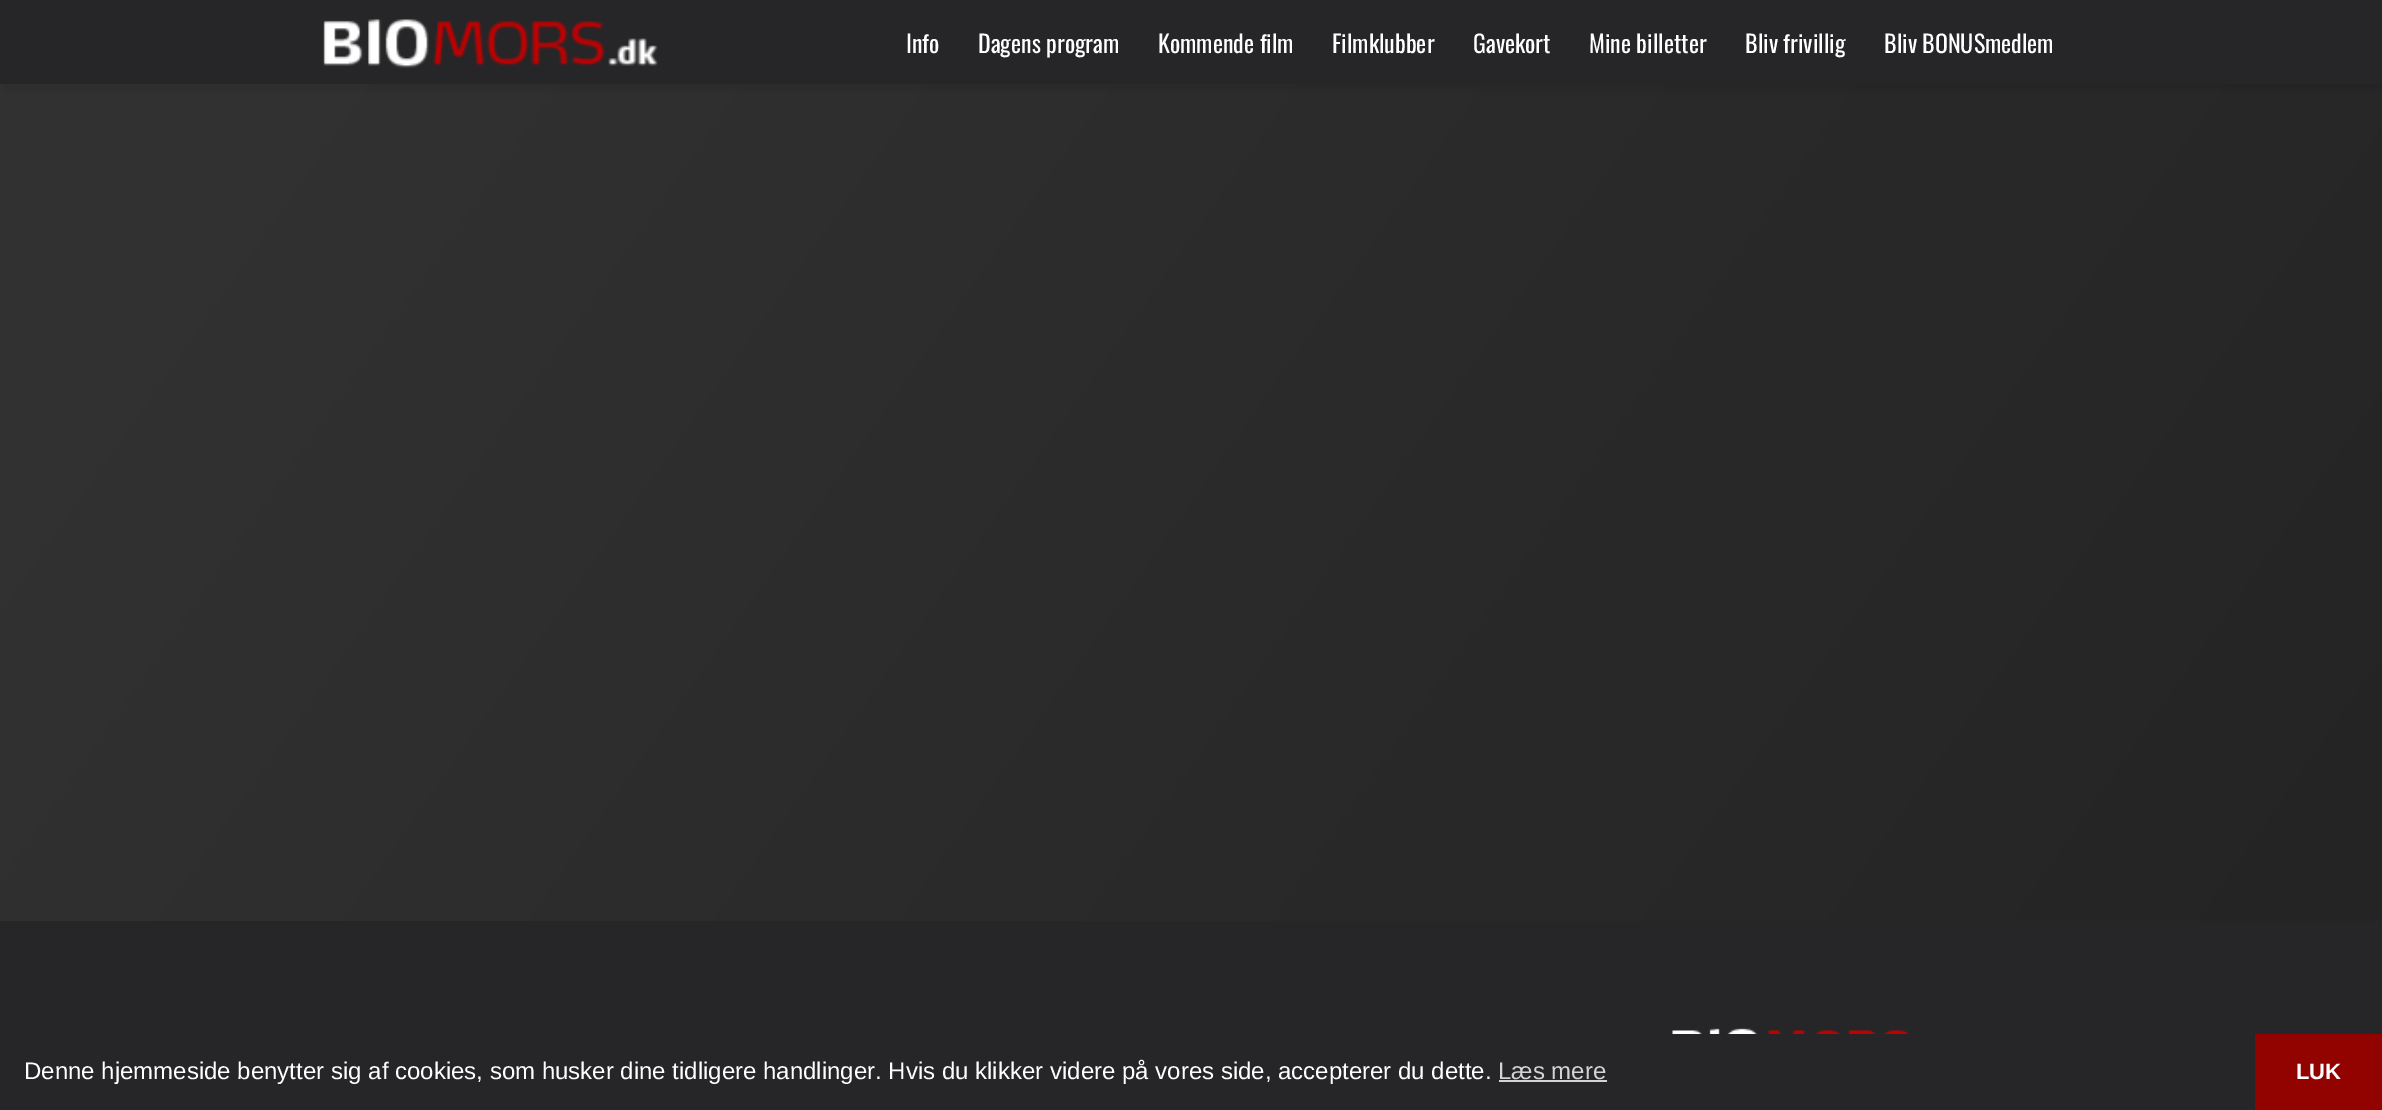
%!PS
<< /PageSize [2382 1110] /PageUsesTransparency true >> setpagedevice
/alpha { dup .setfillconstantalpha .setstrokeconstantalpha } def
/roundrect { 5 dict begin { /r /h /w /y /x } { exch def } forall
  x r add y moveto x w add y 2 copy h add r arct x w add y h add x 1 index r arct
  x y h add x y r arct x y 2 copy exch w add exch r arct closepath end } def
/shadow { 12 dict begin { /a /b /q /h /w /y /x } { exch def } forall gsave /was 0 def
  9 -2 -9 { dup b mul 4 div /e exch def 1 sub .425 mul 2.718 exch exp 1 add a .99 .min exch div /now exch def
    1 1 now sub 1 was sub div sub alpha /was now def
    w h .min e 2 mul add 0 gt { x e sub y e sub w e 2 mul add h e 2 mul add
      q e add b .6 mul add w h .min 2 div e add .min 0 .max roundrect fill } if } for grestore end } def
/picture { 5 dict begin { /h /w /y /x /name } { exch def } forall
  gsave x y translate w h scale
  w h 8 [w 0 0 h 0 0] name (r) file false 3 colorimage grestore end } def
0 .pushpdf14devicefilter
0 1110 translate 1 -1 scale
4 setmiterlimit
1 setgray
0 0 2382 1110 rectfill
gsave newpath 0 84 moveto 2382 84 lineto 2382 921 lineto 0 921 lineto closepath clip newpath
<< /ShadingType 2 /ColorSpace /DeviceRGB /Coords [2234 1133 148 -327] /Extend [true true] /Function << /FunctionType 2 /Domain [0 1] /C0 [0.141 0.141 0.141] /C1 [0.2 0.2 0.2] /N 1 >> >> shfill grestore
0 setgray
5 6 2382 84 0 6 0.11 shadow
0.149 0.149 0.157 setrgbcolor
0 0 2382 84 rectfill
(img1.rgb) 323 19 335 49 picture
/Oswald-Regular [24 0 0 -24 0 0] selectfont
1 setgray
906 53 moveto (Info) show
978 53 moveto (Dagens program) show
1158 53 moveto (Kommende film) show
1332 53 moveto (Filmklubber) show
1473 53 moveto (Gavekort) show
1589 53 moveto (Mine billetter) show
1745 53 moveto (Bliv frivillig) show
1884 53 moveto (Bliv BONUSmedlem) show
0.149 0.149 0.157 setrgbcolor
0 921 2382 113 rectfill
(img2.rgb) 1672 1028 283 6 picture
0 1034 2255 76 rectfill
/LiberationSans-Regular [24 0 0 -24 0 0] selectfont
1 setgray
24 1079 moveto (Denne hjemmeside benytter sig af cookies, som husker dine tidligere handlinger. Hvis du klikker videre på vores side, accepterer du dette.) show
0.831 setgray
1498 1079 moveto (Læs mere) show
1499 1080 108 2 rectfill
0.573 0.012 0 setrgbcolor
2255 1034 127 76 rectfill
/LiberationSans-Bold [22 0 0 -22 0 0] selectfont
1 setgray
2296 1079 moveto (LUK) show
.poppdf14devicefilter showpage
